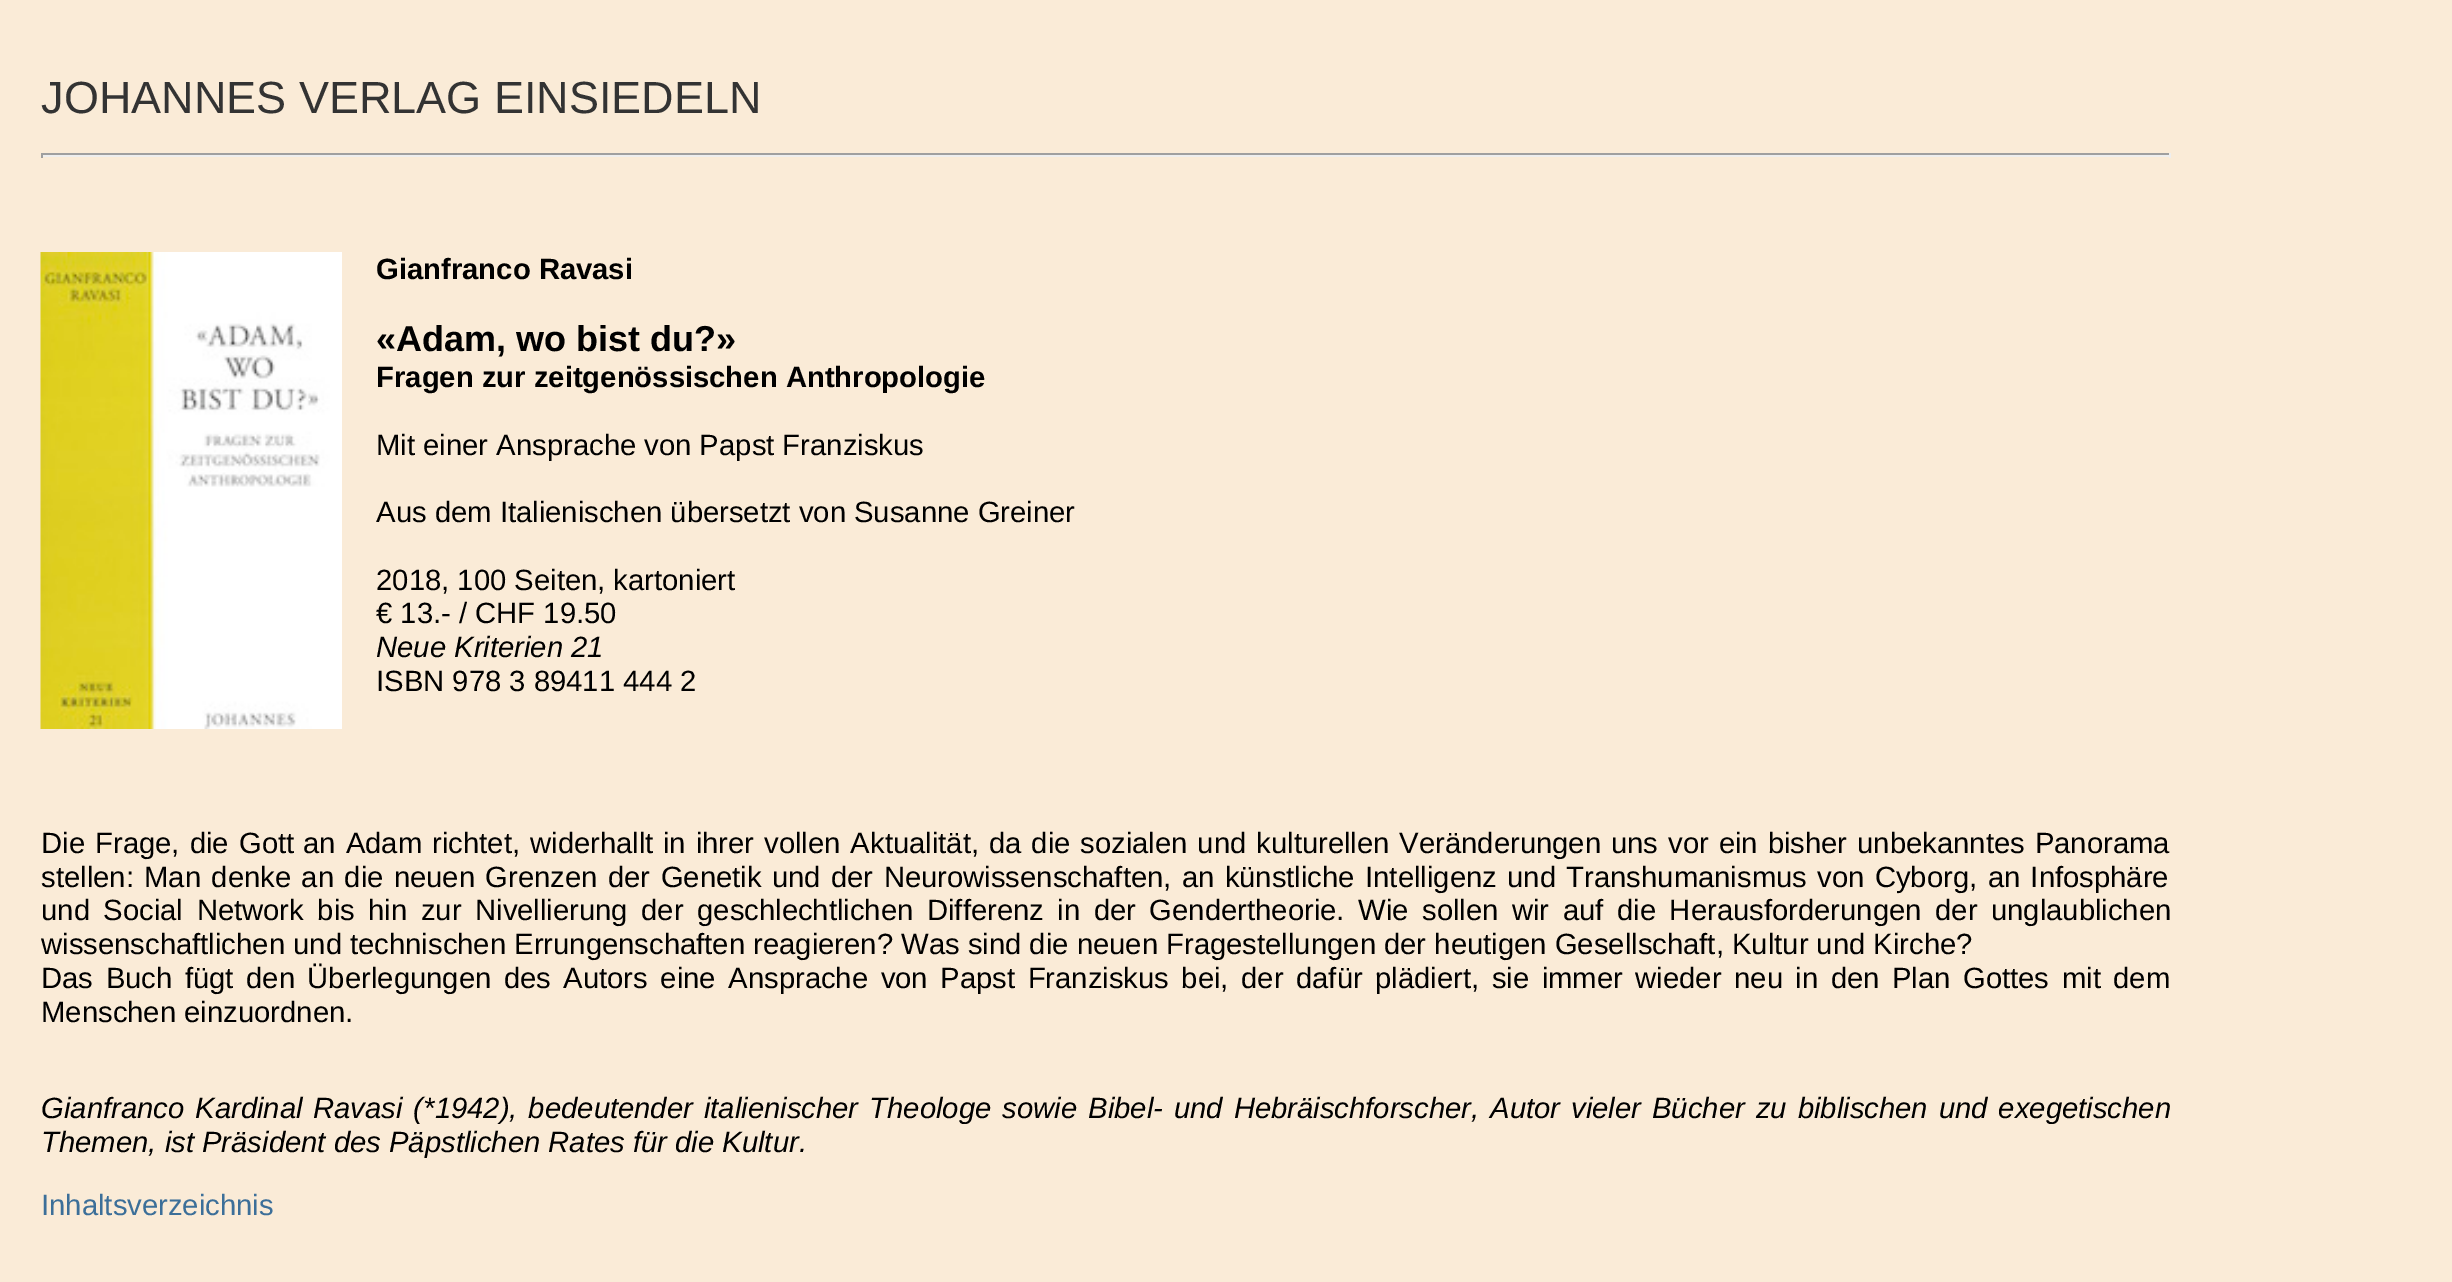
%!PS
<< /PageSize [2452 1282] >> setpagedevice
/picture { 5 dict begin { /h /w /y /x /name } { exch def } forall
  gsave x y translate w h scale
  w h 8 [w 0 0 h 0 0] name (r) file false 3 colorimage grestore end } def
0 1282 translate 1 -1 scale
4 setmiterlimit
0.98 0.922 0.843 setrgbcolor
0 0 2452 1282 rectfill
/LiberationSans-Regular [45 0 0 -45 0 0] selectfont
0.2 setgray
41 113 moveto (JOHANNES VERLAG EINSIEDELN) show
0.624 setgray
41 153 2130 2 rectfill
0.933 setgray
2169 153 2 5 rectfill
41 155 2130 2 rectfill
0.624 setgray
41 153 2 5 rectfill
(img1.rgb) 40 252 302 477 picture
/LiberationSans-Bold [29.25 0 0 -29.25 0 0] selectfont
0 setgray
376 279 moveto (Gianfranco Ravasi) show
/LiberationSans-Bold [36 0 0 -36 0 0] selectfont
376 351 moveto («Adam, wo bist du?») show
/LiberationSans-Bold [29.25 0 0 -29.25 0 0] selectfont
376 387 moveto (Fragen zur zeitgenössischen Anthropologie) show
/LiberationSans-Regular [29.25 0 0 -29.25 0 0] selectfont
376 455 moveto (Mit einer Ansprache von Papst Franziskus) show
376 522 moveto (Aus dem Italienischen übersetzt von Susanne Greiner) show
376 590 moveto (2018, 100 Seiten, kartoniert) show
376 623 moveto (€ 13.- / CHF 19.50) show
/LiberationSans-Italic [29.25 0 0 -29.25 0 0] selectfont
376 657 moveto (Neue Kriterien 21) show
/LiberationSans-Regular [29.25 0 0 -29.25 0 0] selectfont
376 691 moveto (ISBN 978 3 89411 444 2) show
41 853 moveto 2 0 32 (Die Frage, die Gott) widthshow
303 853 moveto 2 0 32 (an Adam richtet, widerhallt) widthshow
663 853 moveto 1.8 0 32 (in ihrer vollen Aktualität, da die sozialen und kulturellen Veränderungen uns vor ein bisher unbekanntes Panorama) widthshow
41 887 moveto 2.25 0 32 (stellen: Man denke an die neuen Grenzen der Genetik und der Neurowissenschaften, an künstliche Intelligenz und Transhumanismus von Cyborg, an Infosphäre) widthshow
41 920 moveto 5.4 0 32 (und Social Network bis hin zur Nivellierung der geschlechtlichen Differenz in der Gendertheorie. Wie sollen wir auf die Herausforderungen der unglaublichen) widthshow
41 954 moveto (wissenschaftlichen und technischen Errungenschaften reagieren? Was sind die neuen Fragestellungen der heutigen Gesellschaft, Kultur und Kirche?) show
41 988 moveto 4.4 0 32 (Das Buch fügt den Überlegungen des Autors eine Ansprache von Papst Franziskus bei, der dafür plädiert, sie immer wieder neu in den Plan Gottes mit dem) widthshow
41 1022 moveto (Menschen einzuordnen.) show
/LiberationSans-Italic [29.25 0 0 -29.25 0 0] selectfont
41 1118 moveto 2.9 0 32 (Gianfranco Kardinal) widthshow
313 1118 moveto 2.9 0 32 (Ravasi \(*1942\), bedeutender italienischer Theologe sowie Bibel- und Hebräischforscher, Autor vieler Bücher zu biblischen und exegetischen) widthshow
41 1152 moveto (Themen, ist Präsident des Päpstlichen Rates für die Kultur.) show
/LiberationSans-Regular [29.25 0 0 -29.25 0 0] selectfont
0.235 0.435 0.6 setrgbcolor
41 1215 moveto (Inhaltsverzeichnis) show
showpage
